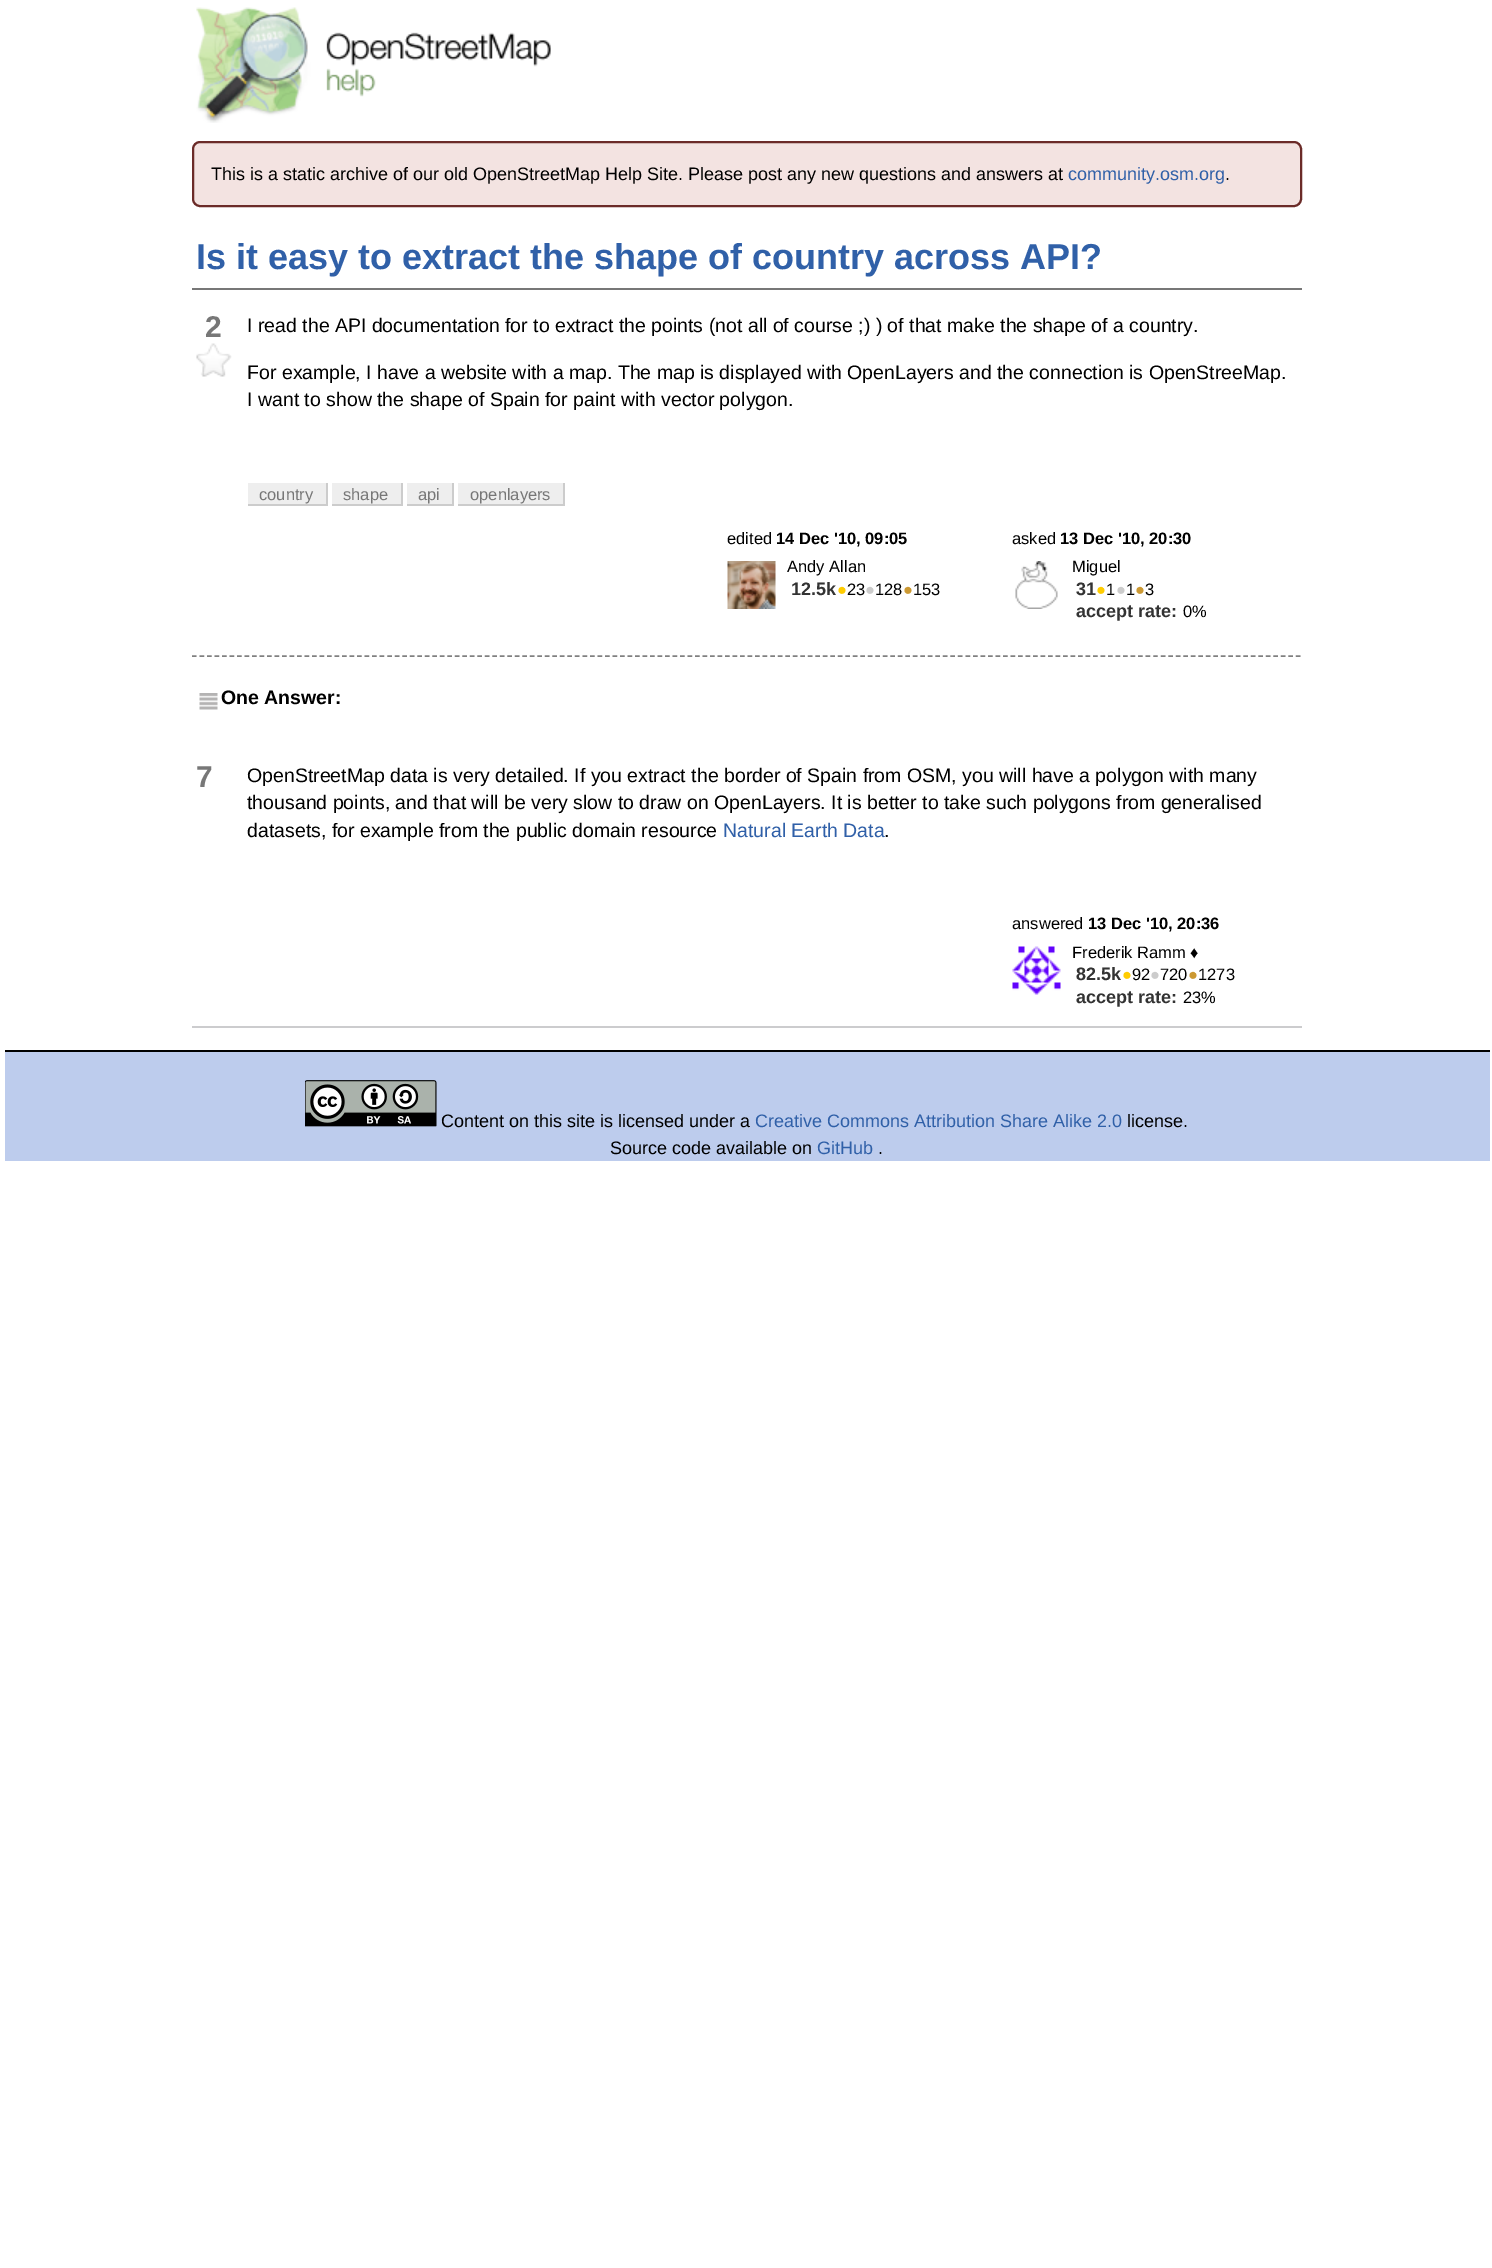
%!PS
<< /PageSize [1492 2268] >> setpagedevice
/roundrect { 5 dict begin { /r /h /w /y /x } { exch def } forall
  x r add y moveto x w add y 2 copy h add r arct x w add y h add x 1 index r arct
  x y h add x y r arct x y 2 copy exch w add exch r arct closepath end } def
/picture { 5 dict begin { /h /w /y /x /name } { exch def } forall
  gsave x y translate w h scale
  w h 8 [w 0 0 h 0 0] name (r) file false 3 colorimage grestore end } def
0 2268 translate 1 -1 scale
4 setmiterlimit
1 setgray
0 0 1492 2268 rectfill
(img1.rgb) 196 7 355 116 picture
0.953 0.89 0.882 setrgbcolor
193 142 1108 64 7 roundrect gsave fill grestore
0.42 0.169 0.157 setrgbcolor
2 setlinewidth
stroke
/LiberationSans-Regular [18 0 0 -18 0 0] selectfont
0 setgray
211 180 moveto (This is a static archive of our old OpenStreetMap Help Site. Please post any new questions and answers at) show
0.188 0.376 0.659 setrgbcolor
1068 180 moveto (community.osm.org) show
0 setgray
1225 180 moveto (.) show
0.467 setgray
192 288 1110 2 rectfill
/LiberationSans-Bold [36 0 0 -36 0 0] selectfont
0.188 0.376 0.659 setrgbcolor
196 269 moveto (Is it easy to extract the shape of country across API?) show
/LiberationSans-Bold [30 0 0 -30 0 0] selectfont
0.467 setgray
205 337 moveto (2) show
(img2.rgb) 196 343 36 34 picture
/LiberationSans-Regular [19.5 0 0 -19.5 0 0] selectfont
0 setgray
247 332 moveto (I read the API documentation for to extract the points \(not all of course ;\) \) of that make the shape of a country.) show
247 379 moveto (For example, I have a website with a map. The map is displayed with OpenLayers and the connection is OpenStreeMap.) show
247 406 moveto (I want to show the shape of Spain for paint with vector polygon.) show
0.933 setgray
248 483 78 21 rectfill
/LiberationSans-Regular [16.5 0 0 -16.5 0 0] selectfont
0.467 setgray
259 500 moveto (country) show
0.8 setgray
326 483 2 23 rectfill
248 504 79 2 rectfill
0.933 setgray
332 483 69 21 rectfill
0.467 setgray
343 500 moveto (shape) show
0.8 setgray
401 483 2 23 rectfill
332 504 70 2 rectfill
0.933 setgray
407 483 45 21 rectfill
0.467 setgray
418 500 moveto (api) show
0.8 setgray
452 483 2 23 rectfill
407 504 46 2 rectfill
0.933 setgray
458 483 105 21 rectfill
0.467 setgray
470 500 moveto (openlayers) show
0.8 setgray
563 483 2 23 rectfill
458 504 106 2 rectfill
0 setgray
727 544 moveto (edited) show
/LiberationSans-Bold [16.5 0 0 -16.5 0 0] selectfont
776 544 moveto (14 Dec '10, 09:05) show
(img3.rgb) 727 561 49 48 picture
/LiberationSans-Regular [16.5 0 0 -16.5 0 0] selectfont
787 572 moveto (Andy Allan) show
/LiberationSans-Bold [18 0 0 -18 0 0] selectfont
0.2 setgray
791 595 moveto (12.5k) show
/LiberationSans-Regular [16.5 0 0 -16.5 0 0] selectfont
1 0.8 0 setrgbcolor
837 595 moveto (●) show
0 setgray
847 595 moveto (23) show
0.8 setgray
865 595 moveto (●) show
0 setgray
875 595 moveto (128) show
0.8 0.6 0.2 setrgbcolor
903 595 moveto (●) show
0 setgray
913 595 moveto (153) show
1012 544 moveto (asked) show
/LiberationSans-Bold [16.5 0 0 -16.5 0 0] selectfont
1060 544 moveto (13 Dec '10, 20:30) show
(img4.rgb) 1015 561 43 48 picture
/LiberationSans-Regular [16.5 0 0 -16.5 0 0] selectfont
1072 572 moveto (Miguel) show
/LiberationSans-Bold [18 0 0 -18 0 0] selectfont
0.2 setgray
1076 595 moveto (31) show
/LiberationSans-Regular [16.5 0 0 -16.5 0 0] selectfont
1 0.8 0 setrgbcolor
1096 595 moveto (●) show
0 setgray
1106 595 moveto (1) show
0.8 setgray
1116 595 moveto (●) show
0 setgray
1126 595 moveto (1) show
0.8 0.6 0.2 setrgbcolor
1135 595 moveto (●) show
0 setgray
1145 595 moveto (3) show
/LiberationSans-Bold [18 0 0 -18 0 0] selectfont
0.2 setgray
1076 617 moveto (accept rate:) show
/LiberationSans-Regular [16.5 0 0 -16.5 0 0] selectfont
0 setgray
1183 617 moveto (0%) show
0.502 setgray
1.5 setlinewidth
[4.5 3.01] 0 setdash
newpath 192 656 moveto 1302 656 lineto stroke
(img5.rgb) 199 693 19 17 picture
/LiberationSans-Bold [19.5 0 0 -19.5 0 0] selectfont
0 setgray
221 704 moveto (One Answer:) show
0.8 0.8 0.808 setrgbcolor
192 1026 1110 2 rectfill
/LiberationSans-Bold [30 0 0 -30 0 0] selectfont
0.467 setgray
196 787 moveto (7) show
/LiberationSans-Regular [19.5 0 0 -19.5 0 0] selectfont
0 setgray
247 782 moveto (OpenStreetMap data is very detailed. If you extract the border of Spain from OSM, you will have a polygon with many) show
247 809 moveto (thousand points, and that will be very slow to draw on OpenLayers. It is better to take such polygons from generalised) show
247 837 moveto (datasets, for example from the public domain resource) show
0.188 0.376 0.659 setrgbcolor
723 837 moveto (Natural Earth Data) show
0 setgray
884 837 moveto (.) show
/LiberationSans-Regular [16.5 0 0 -16.5 0 0] selectfont
1012 929 moveto (answered) show
/LiberationSans-Bold [16.5 0 0 -16.5 0 0] selectfont
1088 929 moveto (13 Dec '10, 20:36) show
(img6.rgb) 1012 946 49 49 picture
/LiberationSans-Regular [16.5 0 0 -16.5 0 0] selectfont
1072 958 moveto (Frederik Ramm ♦) show
/LiberationSans-Bold [18 0 0 -18 0 0] selectfont
0.2 setgray
1076 980 moveto (82.5k) show
/LiberationSans-Regular [16.5 0 0 -16.5 0 0] selectfont
1 0.8 0 setrgbcolor
1122 980 moveto (●) show
0 setgray
1132 980 moveto (92) show
0.8 setgray
1150 980 moveto (●) show
0 setgray
1160 980 moveto (720) show
0.8 0.6 0.2 setrgbcolor
1188 980 moveto (●) show
0 setgray
1198 980 moveto (1273) show
/LiberationSans-Bold [18 0 0 -18 0 0] selectfont
0.2 setgray
1076 1003 moveto (accept rate:) show
/LiberationSans-Regular [16.5 0 0 -16.5 0 0] selectfont
0 setgray
1183 1003 moveto (23%) show
0.741 0.8 0.929 setrgbcolor
5 1052 1485 109 rectfill
0 setgray
5 1050 1485 2 rectfill
(img7.rgb) 305 1080 132 47 picture
/LiberationSans-Regular [18 0 0 -18 0 0] selectfont
441 1127 moveto (Content on this site is licensed under a) show
0.188 0.376 0.659 setrgbcolor
755 1127 moveto (Creative Commons Attribution Share Alike 2.0) show
0 setgray
1127 1127 moveto (license.) show
610 1154 moveto (Source code available on) show
0.188 0.376 0.659 setrgbcolor
817 1154 moveto (GitHub) show
0 setgray
878 1154 moveto (.) show
showpage
